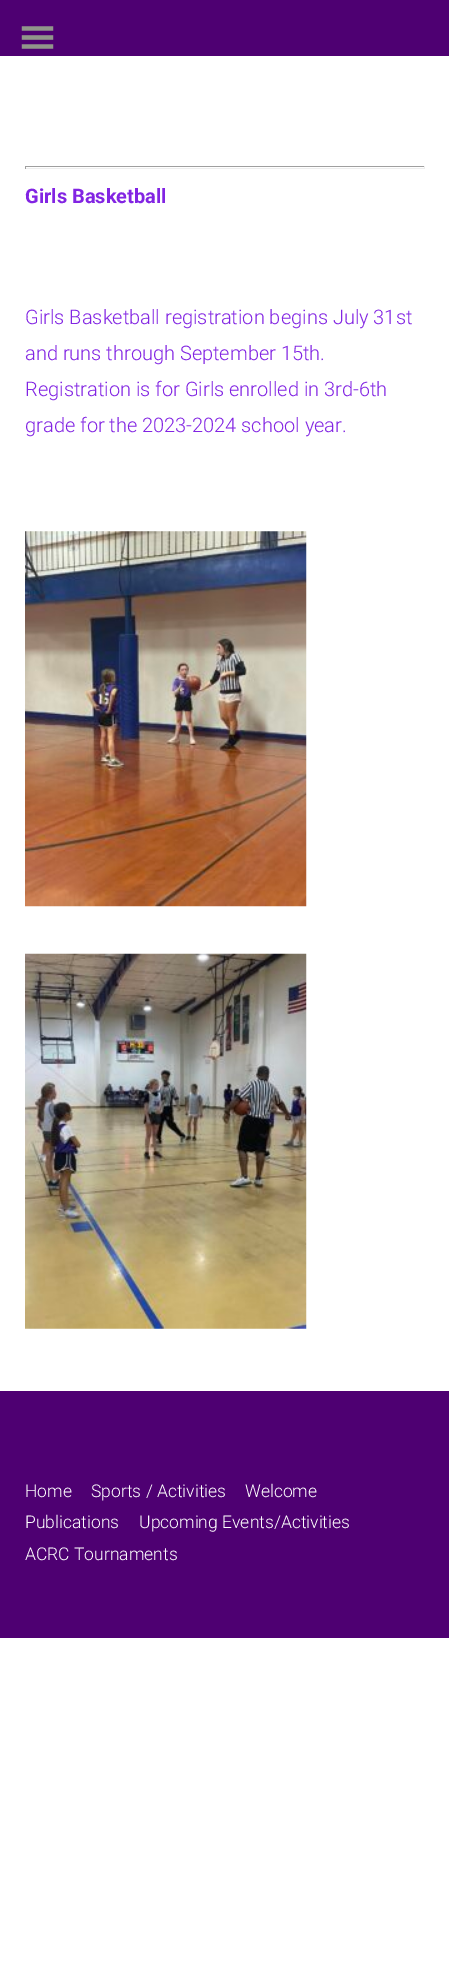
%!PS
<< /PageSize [449 1980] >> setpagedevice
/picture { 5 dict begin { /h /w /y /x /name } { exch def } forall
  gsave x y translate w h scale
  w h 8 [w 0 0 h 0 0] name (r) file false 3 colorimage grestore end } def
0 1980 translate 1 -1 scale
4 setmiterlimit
1 setgray
0 0 449 1980 rectfill
0.306 0 0.447 setrgbcolor
0 0 449 56 rectfill
(img1.rgb) 21 26 33 23 picture
0.624 setgray
25 166 400 1 rectfill
0.933 setgray
424 166 1 3 rectfill
25 168 400 1 rectfill
0.624 setgray
25 166 1 3 rectfill
/Roboto-Bold [20 0 0 -20 0 0] selectfont
0.51 0.141 0.89 setrgbcolor
25 203 moveto (Girls Basketball) show
/Roboto-Light [20 0 0 -20 0 0] selectfont
25 324 moveto (Girls Basketball registration begins July 31st) show
25 360 moveto (and runs through September 15th.) show
25 396 moveto (Registration is for Girls enrolled in 3rd-6th) show
25 432 moveto (grade for the 2023-2024 school year.) show
(img2.rgb) 25 531 282 376 picture
(img3.rgb) 25 953 282 376 picture
0.306 0 0.447 setrgbcolor
0 1391 449 247 rectfill
/Roboto-Light [17.5 0 0 -17.5 0 0] selectfont
1 setgray
25 1497 moveto (Home) show
91 1497 moveto (Sports / Activities) show
245 1497 moveto (Welcome) show
25 1528 moveto (Publications) show
139 1528 moveto (Upcoming Events/Activities) show
25 1560 moveto (ACRC Tournaments) show
showpage
